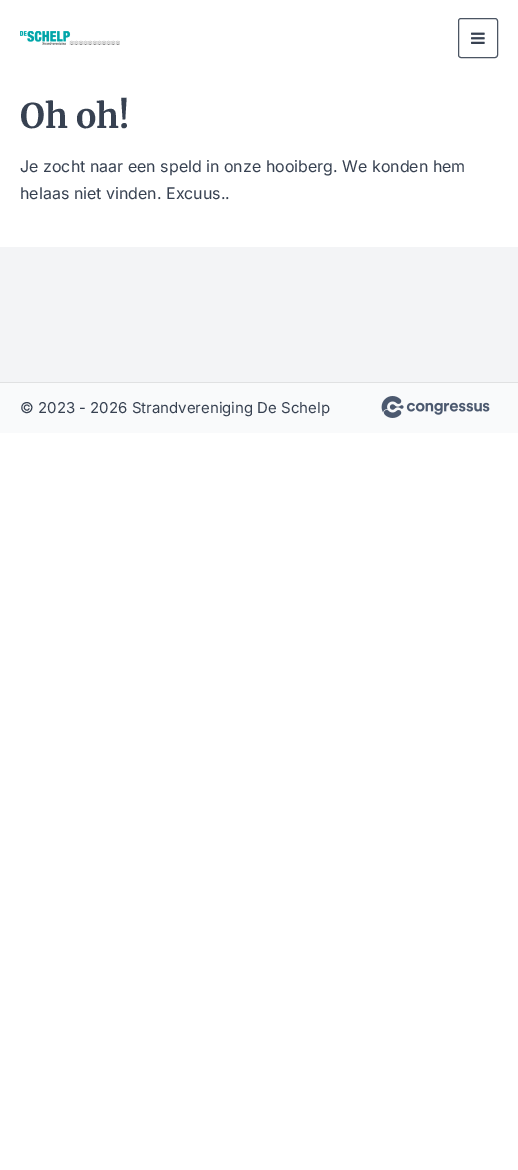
%!PS
<< /PageSize [518 1170] >> setpagedevice
/roundrect { 5 dict begin { /r /h /w /y /x } { exch def } forall
  x r add y moveto x w add y 2 copy h add r arct x w add y h add x 1 index r arct
  x y h add x y r arct x y 2 copy exch w add exch r arct closepath end } def
/picture { 5 dict begin { /h /w /y /x /name } { exch def } forall
  gsave x y translate w h scale
  w h 8 [w 0 0 h 0 0] name (r) file false 3 colorimage grestore end } def
0 1170 translate 1 -1 scale
4 setmiterlimit
1 setgray
0 0 518 1170 rectfill
(img1.rgb) 20 31 100 14 picture
0.294 0.333 0.388 setrgbcolor
458.5 18.5 39 39 2.5 roundrect stroke
(img2.rgb) 471 32 14 12 picture
/Merriweather-Bold [34 0 0 -34 0 0] selectfont
0.216 0.255 0.318 setrgbcolor
20 128 moveto (Oh oh!) show
/Inter-Regular [16 0 0 -16 0 0] selectfont
20 172 moveto (Je zocht naar een speld in onze hooiberg. We konden hem) show
20 199 moveto (helaas niet vinden. Excuus..) show
0.953 0.957 0.965 setrgbcolor
0 247 518 135 rectfill
0.976 0.98 0.984 setrgbcolor
0 383 518 50 rectfill
0.878 0.882 0.886 setrgbcolor
0 382 518 1 rectfill
/Inter-Regular [15 0 0 -15 0 0] selectfont
0.216 0.255 0.318 setrgbcolor
20 413 moveto (© 2023 - 2026 Strandvereniging De Schelp) show
(img3.rgb) 381 396 109 22 picture
showpage
